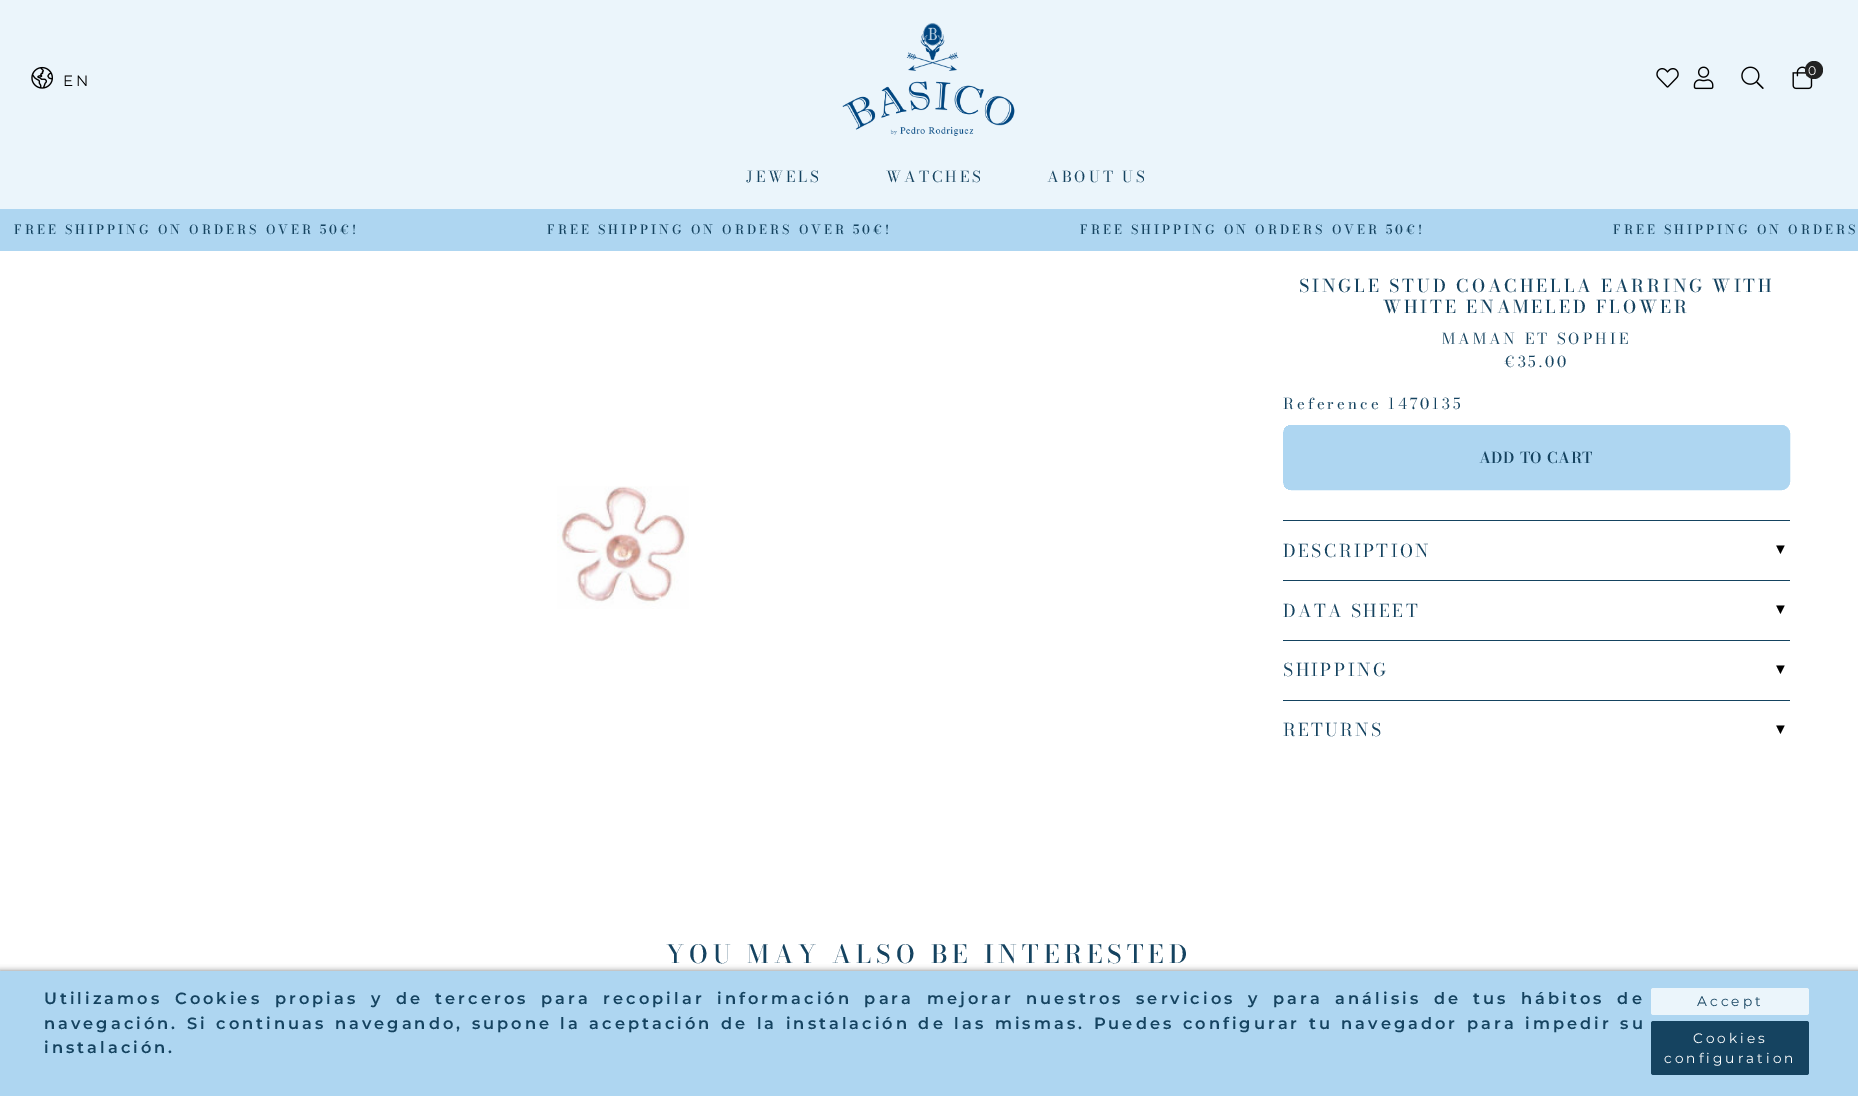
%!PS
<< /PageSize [1858 1096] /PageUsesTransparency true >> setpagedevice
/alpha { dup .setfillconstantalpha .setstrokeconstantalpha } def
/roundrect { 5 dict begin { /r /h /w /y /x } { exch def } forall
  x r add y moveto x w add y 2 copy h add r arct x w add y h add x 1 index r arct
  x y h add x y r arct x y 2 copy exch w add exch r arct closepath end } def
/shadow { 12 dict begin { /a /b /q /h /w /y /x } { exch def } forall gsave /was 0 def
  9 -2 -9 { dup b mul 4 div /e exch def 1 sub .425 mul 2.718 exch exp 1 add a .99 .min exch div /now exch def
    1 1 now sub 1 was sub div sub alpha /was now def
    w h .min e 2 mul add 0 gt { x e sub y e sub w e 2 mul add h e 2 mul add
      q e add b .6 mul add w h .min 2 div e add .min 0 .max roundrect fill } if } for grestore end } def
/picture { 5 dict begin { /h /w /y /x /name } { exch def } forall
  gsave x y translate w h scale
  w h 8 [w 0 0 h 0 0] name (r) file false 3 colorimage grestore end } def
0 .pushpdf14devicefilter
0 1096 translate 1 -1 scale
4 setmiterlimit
1 setgray
0 0 1858 1096 rectfill
0.922 0.961 0.984 setrgbcolor
0 0 1858 209 rectfill
(img1.rgb) 842 23 173 113 picture
(img2.rgb) 1656 68 23 20 picture
(img3.rgb) 1693 66 21 24 picture
(img4.rgb) 1741 66 23 23 picture
(img5.rgb) 1792 66 21 24 picture
0.133 setgray
newpath 1814 70 9 0 360 arc closepath fill
/Montserrat-Regular [12.5 0 0 -12.5 0 0] selectfont
1 setgray
1808 75 moveto 3 0 (0) ashow
(img6.rgb) 31 66 22 23 picture
/Montserrat-Regular [15 0 0 -15 0 0] selectfont
0 setgray
63 86 moveto 3 0 (EN) ashow
/BodoniModa-Regular [15 0 0 -15 0 0] selectfont
0.082 0.263 0.376 setrgbcolor
746 182 moveto 3 0 (JEWELS) ashow
886 182 moveto 3 0 (WATCHES) ashow
1047 182 moveto 3 0 (ABOUT US) ashow
0.682 0.839 0.945 setrgbcolor
0 209 1858 42 rectfill
/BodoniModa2-Medium [12.5 0 0 -12.5 0 0] selectfont
0.082 0.263 0.376 setrgbcolor
14 234 moveto 3 0 (FREE SHIPPING ON ORDERS OVER 50€!) ashow
547 234 moveto 3 0 (FREE SHIPPING ON ORDERS OVER 50€!) ashow
1080 234 moveto 3 0 (FREE SHIPPING ON ORDERS OVER 50€!) ashow
1613 234 moveto 3 0 (FREE SHIPPING ON ORDERS) ashow
(img7.rgb) 557 486 132 123 picture
/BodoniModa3-Medium [17.5 0 0 -17.5 0 0] selectfont
1299 292 moveto 3 0 (SINGLE STUD COACHELLA EARRING WITH) ashow
1383 313 moveto 3 0 (WHITE ENAMELED FLOWER) ashow
/BodoniModa-Regular [15 0 0 -15 0 0] selectfont
1442 344 moveto 3 0 (MAMAN ET SOPHIE) ashow
1504 367 moveto 3 0 (€35.00) ashow
1283 409 moveto 3 0 (Reference 1470135) ashow
gsave
1283 425 507 65 9 roundrect clip newpath
0.682 0.839 0.945 setrgbcolor
newpath 1284 425 moveto 1781 425 lineto 1786 425 1790 429 1790 434 curveto 1790 481 lineto 1790 486 1786 490 1781 490 curveto 1284 490 lineto closepath fill
grestore
0.682 0.839 0.945 setrgbcolor
1283.5 425.5 506 64 8.5 roundrect stroke
/BodoniModa-SemiBold [15 0 0 -15 0 0] selectfont
0.082 0.263 0.376 setrgbcolor
1479 463 moveto 0.6 0 (ADD TO CART) ashow
1283 520 507 1 rectfill
/BodoniModa2-Regular [17.5 0 0 -17.5 0 0] selectfont
1283 557 moveto 2.5 0 (DESCRIPTION) ashow
/LiberationSerif-Regular [15 0 0 -15 0 0] selectfont
0 setgray
1773 554 moveto 2.5 0 (▼) ashow
0.082 0.263 0.376 setrgbcolor
1283 580 507 1 rectfill
/BodoniModa2-Regular [17.5 0 0 -17.5 0 0] selectfont
1283 617 moveto 2.5 0 (DATA SHEET) ashow
/LiberationSerif-Regular [15 0 0 -15 0 0] selectfont
0 setgray
1773 614 moveto 2.5 0 (▼) ashow
0.082 0.263 0.376 setrgbcolor
1283 640 507 1 rectfill
/BodoniModa2-Regular [17.5 0 0 -17.5 0 0] selectfont
1283 676 moveto 2.5 0 (SHIPPING) ashow
/LiberationSerif-Regular [15 0 0 -15 0 0] selectfont
0 setgray
1773 674 moveto 2.5 0 (▼) ashow
0.082 0.263 0.376 setrgbcolor
1283 700 507 1 rectfill
/BodoniModa2-Regular [17.5 0 0 -17.5 0 0] selectfont
1283 736 moveto 2.5 0 (RETURNS) ashow
/LiberationSerif-Regular [15 0 0 -15 0 0] selectfont
0 setgray
1773 734 moveto 2.5 0 (▼) ashow
/BodoniModa-Medium [25 0 0 -25 0 0] selectfont
0.082 0.263 0.376 setrgbcolor
666 963 moveto 5 0 (YOU MAY ALSO BE INTERESTED) ashow
0 setgray
0 971 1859 125 0 3 0.5 shadow
0.682 0.839 0.945 setrgbcolor
0 971 1858 125 rectfill
/Montserrat-SemiBold [16.25 0 0 -16.25 0 0] selectfont
0.082 0.263 0.376 setrgbcolor
44 1004 moveto 5.1 0 32 3 0 (Utilizamos Cookies propias y de terceros para recopilar información para mejorar nuestros servicios y para análisis de tus hábitos de) awidthshow
44 1029 moveto 1 0 32 3 0 (navegación. Si continuas navegando, supone la aceptación de la instalación de las mismas. Puedes configurar tu navegador para impedir su) awidthshow
44 1053 moveto 3 0 (instalación.) ashow
0.922 0.961 0.984 setrgbcolor
1651 988 158 27 2.5 roundrect fill
/Montserrat-Regular [13.75 0 0 -13.75 0 0] selectfont
0.082 0.263 0.376 setrgbcolor
1697 1006 moveto 3 0 (Accept) ashow
1651 1021 158 54 2.5 roundrect fill
1 setgray
1693 1043 moveto 3 0 (Cookies) ashow
1664 1063 moveto 3 0 (configuration) ashow
.poppdf14devicefilter showpage
